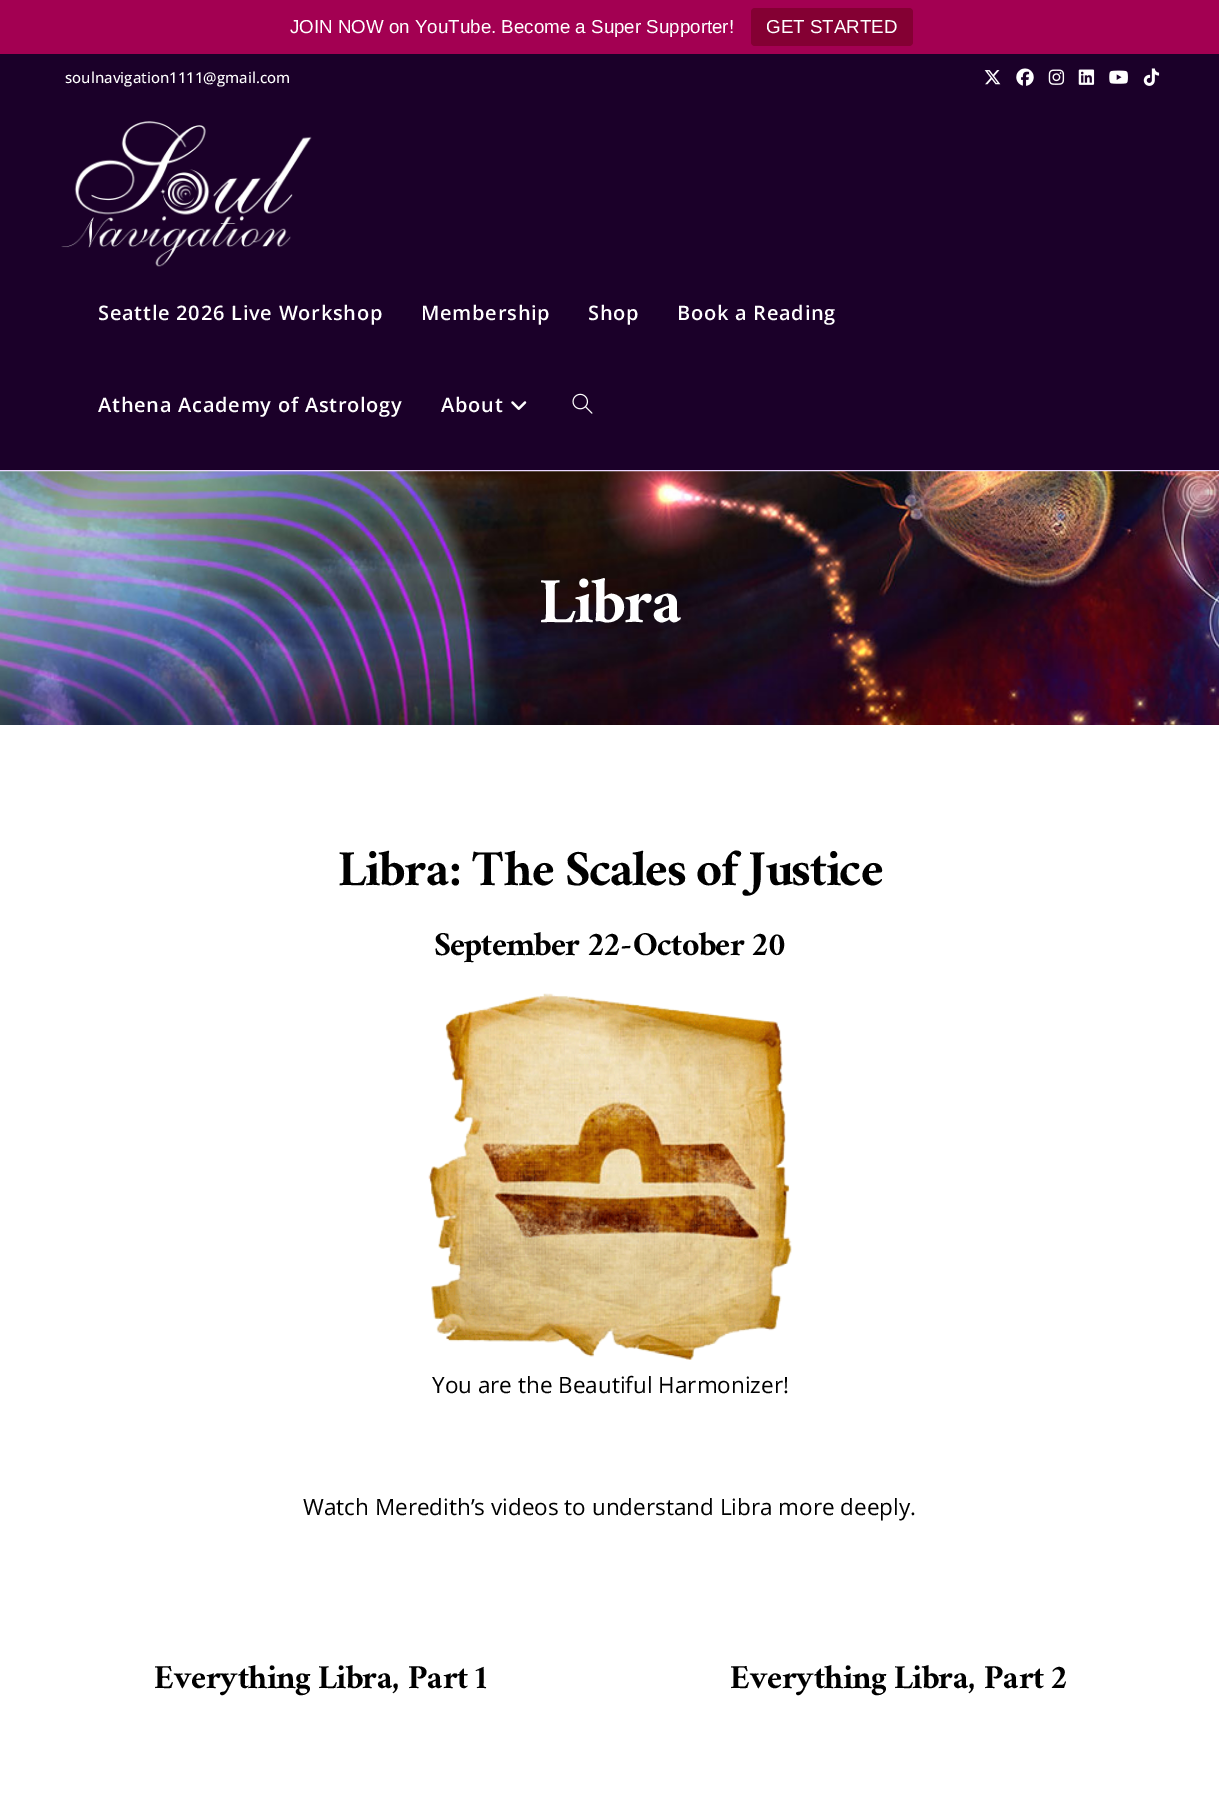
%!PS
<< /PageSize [1219 1806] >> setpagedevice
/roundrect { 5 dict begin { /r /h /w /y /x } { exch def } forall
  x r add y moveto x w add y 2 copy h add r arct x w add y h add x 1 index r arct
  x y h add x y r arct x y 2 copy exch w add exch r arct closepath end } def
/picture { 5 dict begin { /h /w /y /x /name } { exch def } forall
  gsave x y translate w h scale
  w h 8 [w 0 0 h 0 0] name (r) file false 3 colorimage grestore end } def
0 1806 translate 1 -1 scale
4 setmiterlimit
1 setgray
0 0 1219 1806 rectfill
0.639 0 0.322 setrgbcolor
0 0 1219 54 rectfill
/LiberationSans-Regular [18.75 0 0 -18.75 0 0] selectfont
1 setgray
290 33 moveto (JOIN NOW on YouTube. Become a Super Supporter!) show
0.518 0 0.2 setrgbcolor
751 8 162 38 4 roundrect fill
1 setgray
766 33 moveto (GET STARTED) show
0.106 0 0.161 setrgbcolor
0 54 1219 416 rectfill
/OpenSans-Medium [15 0 0 -15 0 0] selectfont
1 setgray
65 83 moveto (soulnavigation1111@gmail.com) show
(img1.rgb) 984 70 17 15 picture
(img2.rgb) 1016 68 18 18 picture
(img3.rgb) 1048 69 17 16 picture
(img4.rgb) 1078 69 17 16 picture
(img5.rgb) 1109 70 19 14 picture
(img6.rgb) 1143 68 17 18 picture
0.914 0.839 1 setrgbcolor
0 470 1219 1 rectfill
(img7.rgb) 61 121 251 146 picture
/OpenSans-SemiBold [20 0 0 -20 0 0] selectfont
1 setgray
98 320 moveto 0.75 0 (Seattle 2026 Live Workshop) ashow
421 320 moveto 0.75 0 (Membership) ashow
588 320 moveto 0.75 0 (Shop) ashow
677 320 moveto 0.75 0 (Book a Reading) ashow
98 412 moveto 0.75 0 (Athena Academy of Astrology) ashow
441 412 moveto 0.75 0 (About) ashow
(img8.rgb) 511 401 16 9 picture
(img9.rgb) 572 393 21 21 picture
(img10.rgb) 0 471 1219 254 picture
/Ramaraja-Regular [72 0 0 -72 0 0] selectfont
539 622 moveto (Libra) show
/Ramaraja-Regular [56.25 0 0 -56.25 0 0] selectfont
0 setgray
338 885 moveto (Libra: The Scales of Justice) show
/Ramaraja-Regular [37.5 0 0 -37.5 0 0] selectfont
434 955 moveto (September 22-October 20) show
(img11.rgb) 428 993 364 367 picture
/OpenSans-Regular [22.5 0 0 -22.5 0 0] selectfont
432 1393 moveto (You are the Beautiful Harmonizer!) show
303 1515 moveto (Watch Meredith’s videos to understand Libra more deeply.) show
/Ramaraja-Regular [37.5 0 0 -37.5 0 0] selectfont
154 1688 moveto (Everything Libra, Part 1) show
730 1688 moveto (Everything Libra, Part 2) show
showpage
